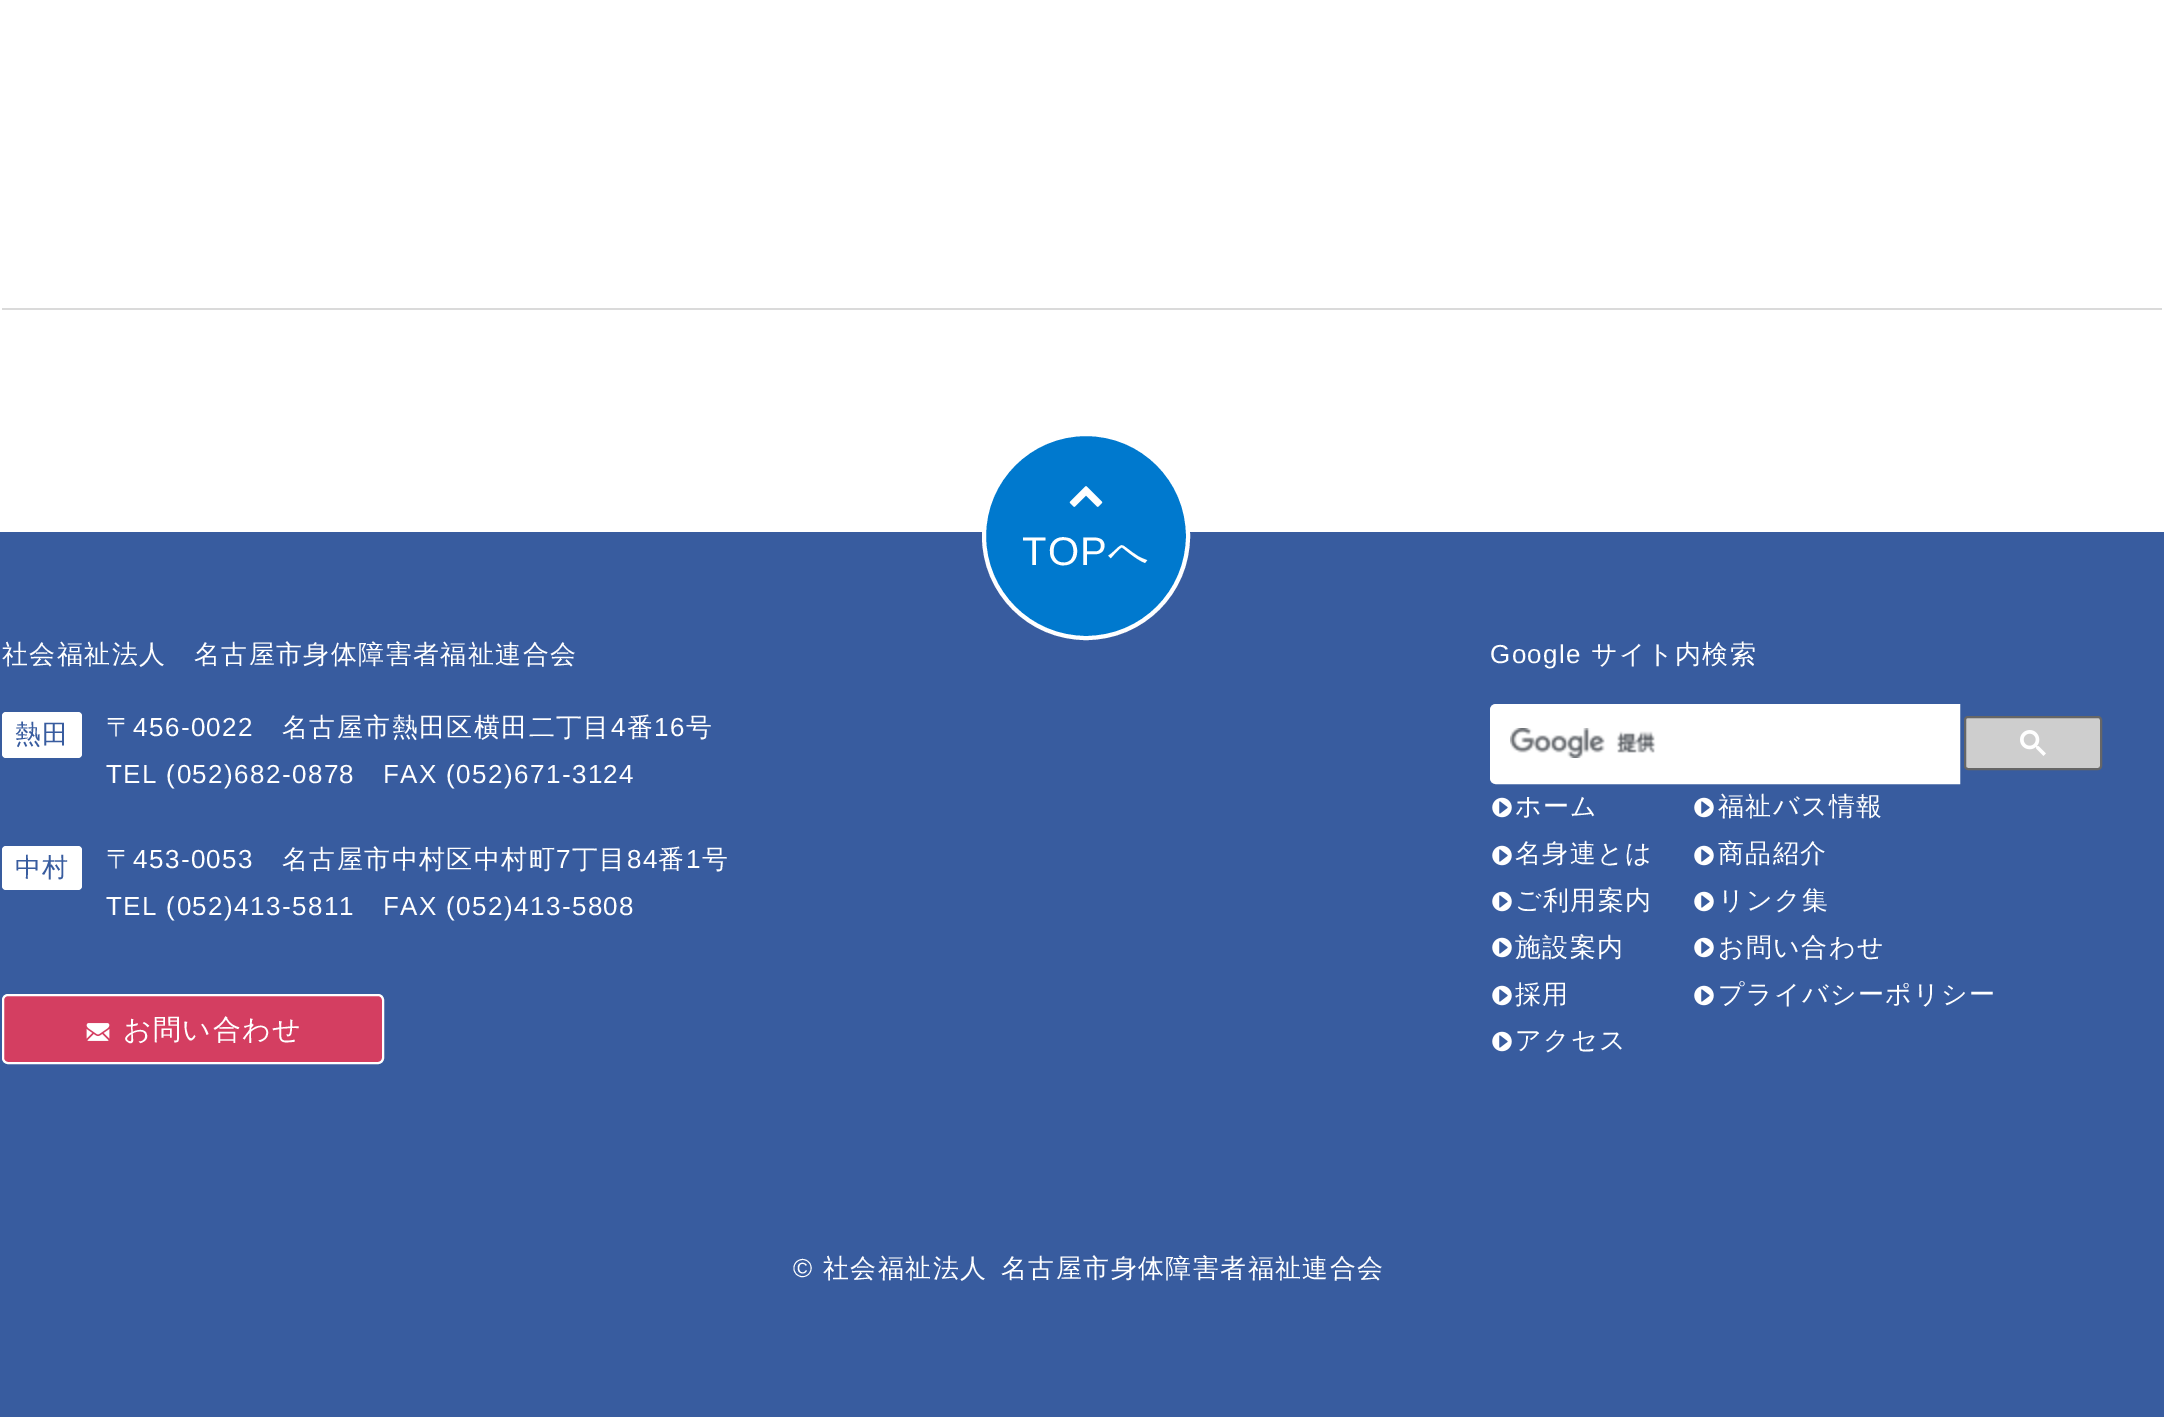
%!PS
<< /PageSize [2164 1417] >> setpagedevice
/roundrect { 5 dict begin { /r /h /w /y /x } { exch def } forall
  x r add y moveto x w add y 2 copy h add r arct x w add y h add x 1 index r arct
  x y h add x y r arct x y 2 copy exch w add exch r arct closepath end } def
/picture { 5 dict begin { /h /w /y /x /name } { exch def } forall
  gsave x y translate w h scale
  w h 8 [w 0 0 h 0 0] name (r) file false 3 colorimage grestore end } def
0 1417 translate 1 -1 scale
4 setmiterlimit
1 setgray
0 0 2164 1417 rectfill
0.855 setgray
2 308 2160 2 rectfill
0.22 0.361 0.624 setrgbcolor
0 532 2164 885 rectfill
0 0.475 0.808 setrgbcolor
newpath 1086 536 102 0 360 arc closepath gsave fill grestore
1 setgray
4 setlinewidth
stroke
(img1.rgb) 1069 486 34 21 picture
/LiberationSans-Regular [40 0 0 -40 0 0] selectfont
1022 565 moveto 1.4 0 (TOP) ashow
/WenQuanYiZenHei-Medium [40 0 0 -40 0 0] selectfont
1108 565 moveto 1.4 0 (へ) ashow
/WenQuanYiZenHei-Medium [26 0 0 -26 0 0] selectfont
2 663 moveto 1.4 0 (社会福祉法人　名古屋市身体障害者福祉連合会) ashow
2 712 80 46 4 roundrect fill
0.22 0.361 0.624 setrgbcolor
15 743 moveto 1.4 0 (熱田) ashow
1 setgray
106 736 moveto 1.4 0 (〒) ashow
/LiberationSans-Regular [26 0 0 -26 0 0] selectfont
133 736 moveto 1.4 0 (456-0022) ashow
/WenQuanYiZenHei-Medium [26 0 0 -26 0 0] selectfont
282 736 moveto 1.4 0 (名古屋市熱田区横田二丁目) ashow
/LiberationSans-Regular [26 0 0 -26 0 0] selectfont
611 736 moveto 1.4 0 (4) ashow
/WenQuanYiZenHei-Medium [26 0 0 -26 0 0] selectfont
627 736 moveto 1.4 0 (番) ashow
/LiberationSans-Regular [26 0 0 -26 0 0] selectfont
654 736 moveto 1.4 0 (16) ashow
/WenQuanYiZenHei-Medium [26 0 0 -26 0 0] selectfont
686 736 moveto 1.4 0 (号) ashow
/LiberationSans-Regular [26 0 0 -26 0 0] selectfont
106 783 moveto 1.4 0 (TEL \(052\)682-0878) ashow
383 783 moveto 1.4 0 (FAX \(052\)671-3124) ashow
2 846 80 44 4 roundrect fill
/WenQuanYiZenHei-Medium [26 0 0 -26 0 0] selectfont
0.22 0.361 0.624 setrgbcolor
15 876 moveto 1.4 0 (中村) ashow
1 setgray
106 868 moveto 1.4 0 (〒) ashow
/LiberationSans-Regular [26 0 0 -26 0 0] selectfont
133 868 moveto 1.4 0 (453-0053) ashow
/WenQuanYiZenHei-Medium [26 0 0 -26 0 0] selectfont
282 868 moveto 1.4 0 (名古屋市中村区中村町) ashow
/LiberationSans-Regular [26 0 0 -26 0 0] selectfont
556 868 moveto 1.4 0 (7) ashow
/WenQuanYiZenHei-Medium [26 0 0 -26 0 0] selectfont
572 868 moveto 1.4 0 (丁目) ashow
/LiberationSans-Regular [26 0 0 -26 0 0] selectfont
627 868 moveto 1.4 0 (84) ashow
/WenQuanYiZenHei-Medium [26 0 0 -26 0 0] selectfont
658 868 moveto 1.4 0 (番) ashow
/LiberationSans-Regular [26 0 0 -26 0 0] selectfont
686 868 moveto 1.4 0 (1) ashow
/WenQuanYiZenHei-Medium [26 0 0 -26 0 0] selectfont
702 868 moveto 1.4 0 (号) ashow
/LiberationSans-Regular [26 0 0 -26 0 0] selectfont
106 915 moveto 1.4 0 (TEL \(052\)413-5811) ashow
383 915 moveto 1.4 0 (FAX \(052\)413-5808) ashow
0.831 0.243 0.38 setrgbcolor
3 995 380 68 5 roundrect gsave fill grestore
1 setgray
2 setlinewidth
stroke
(img2.rgb) 86 1023 24 18 picture
/WenQuanYiZenHei-Medium [28 0 0 -28 0 0] selectfont
123 1039 moveto 1.4 0 (お問い合わせ) ashow
/LiberationSans-Regular [26 0 0 -26 0 0] selectfont
1490 663 moveto 1.4 0 (Google) ashow
/WenQuanYiZenHei-Medium [26 0 0 -26 0 0] selectfont
1591 663 moveto 1.4 0 (サイト内検索) ashow
newpath 1496 705 moveto 1959 705 lineto 1959 783 lineto 1496 783 lineto 1493 783 1491 781 1491 778 curveto 1491 710 lineto 1491 707 1493 705 1496 705 curveto closepath gsave fill grestore
stroke
(img3.rgb) 1510 728 146 30 picture
0.808 setgray
1965 717 136 52 3 roundrect gsave fill grestore
0.4 setgray
stroke
(img4.rgb) 2020 730 26 26 picture
(img5.rgb) 1492 797 20 21 picture
1 setgray
1515 815 moveto 1.4 0 (ホーム) ashow
(img5.rgb) 1492 845 20 21 picture
1515 862 moveto 1.4 0 (名身連とは) ashow
(img5.rgb) 1492 891 20 21 picture
1515 909 moveto 1.4 0 (ご利用案内) ashow
(img5.rgb) 1492 937 20 21 picture
1515 956 moveto 1.4 0 (施設案内) ashow
(img5.rgb) 1492 985 20 21 picture
1515 1003 moveto 1.4 0 (採用) ashow
(img5.rgb) 1492 1031 20 21 picture
1515 1049 moveto 1.4 0 (アクセス) ashow
(img5.rgb) 1694 797 20 21 picture
1718 815 moveto 1.4 0 (福祉バス情報) ashow
(img5.rgb) 1694 845 20 21 picture
1718 862 moveto 1.4 0 (商品紹介) ashow
(img5.rgb) 1694 891 20 21 picture
1718 909 moveto 1.4 0 (リンク集) ashow
(img5.rgb) 1694 937 20 21 picture
1718 956 moveto 1.4 0 (お問い合わせ) ashow
(img5.rgb) 1694 985 20 21 picture
1718 1003 moveto 1.4 0 (プライバシーポリシー) ashow
/LiberationSans-Regular [26 0 0 -26 0 0] selectfont
793 1277 moveto 1.4 0 (©) ashow
/WenQuanYiZenHei-Medium [26 0 0 -26 0 0] selectfont
823 1277 moveto 1.4 0 (社会福祉法人) ashow
1001 1277 moveto 1.4 0 (名古屋市身体障害者福祉連合会) ashow
showpage
